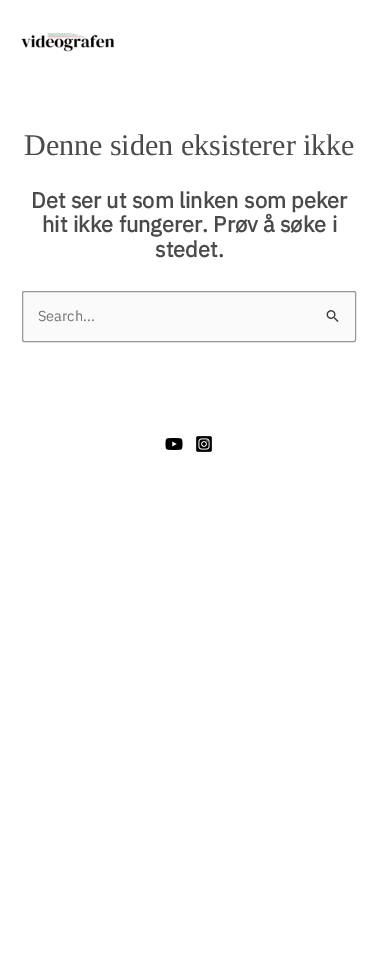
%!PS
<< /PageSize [378 977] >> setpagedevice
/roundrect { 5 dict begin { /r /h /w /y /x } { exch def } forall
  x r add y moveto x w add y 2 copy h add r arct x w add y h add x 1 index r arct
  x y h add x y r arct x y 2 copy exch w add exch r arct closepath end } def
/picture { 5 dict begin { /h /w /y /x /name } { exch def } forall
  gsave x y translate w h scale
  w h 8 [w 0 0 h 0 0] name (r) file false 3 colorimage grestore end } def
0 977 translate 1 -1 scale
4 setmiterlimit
1 setgray
0 0 378 977 rectfill
(img1.rgb) 21 33 94 19 picture
/LiberationSerif-Regular [30 0 0 -30 0 0] selectfont
0.29 setgray
24 155 moveto (Denne siden eksisterer ikke) show
/IBMPlexSans-Bold [21.9 0 0 -21.9 0 0] selectfont
31 208 moveto (Det ser ut som linken som peker) show
42 232 moveto (hit ikke fungerer. Prøv å søke i) show
155 257 moveto (stedet.) show
0.98 setgray
22.5 291.5 333 50 1.5 roundrect gsave fill grestore
0.596 setgray
stroke
/IBMPlexSans-Regular [14.5 0 0 -14.5 0 0] selectfont
0.459 setgray
38 321 moveto (Search...) show
(img2.rgb) 326 310 13 12 picture
(img3.rgb) 165 438 18 12 picture
(img4.rgb) 196 436 16 16 picture
showpage
